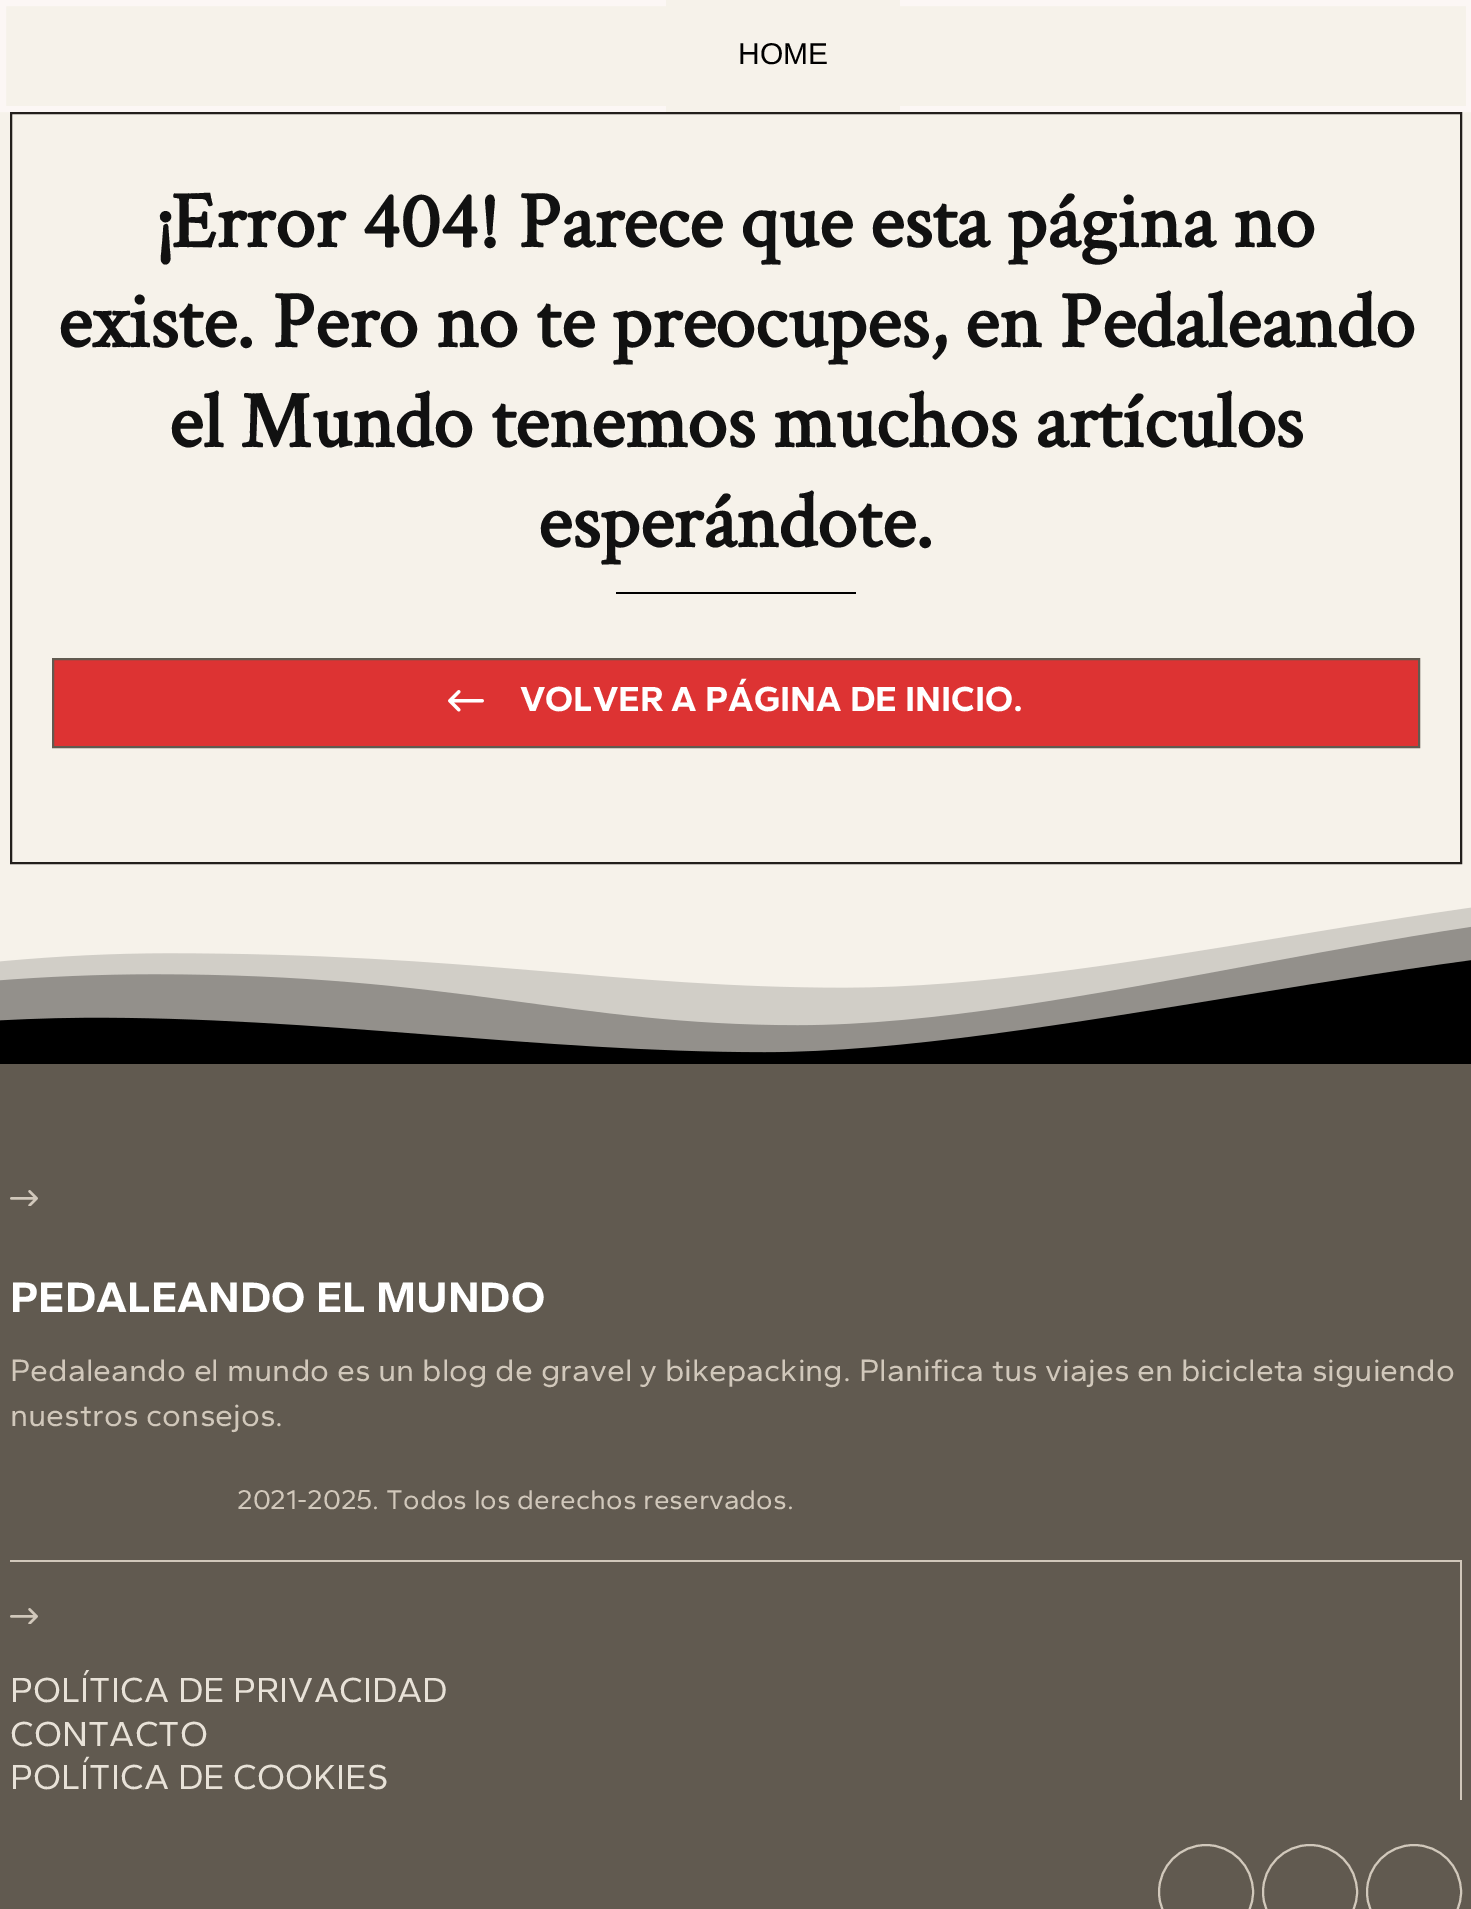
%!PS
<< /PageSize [1471 1909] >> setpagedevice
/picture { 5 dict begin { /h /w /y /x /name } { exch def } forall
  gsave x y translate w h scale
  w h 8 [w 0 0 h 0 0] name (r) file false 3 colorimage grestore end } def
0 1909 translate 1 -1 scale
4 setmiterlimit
0.965 0.949 0.918 setrgbcolor
0 0 1471 1909 rectfill
0.988 0.969 0.961 setrgbcolor
6 setlinewidth
3 3 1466 106 rectstroke
0.965 0.949 0.918 setrgbcolor
666 0 234 112 rectfill
/LiberationSans-Regular [30 0 0 -30 0 0] selectfont
0 setgray
738 64 moveto (HOME) show
0.137 0.122 0.11 setrgbcolor
2 setlinewidth
11 113 1450 750 rectstroke
/CrimsonText-Bold [80 0 0 -80 0 0] selectfont
0.067 setgray
158 247 moveto (¡Error 404! Parece que esta página no) show
58 347 moveto (existe. Pero no te preocupes, en Pedaleando) show
169 447 moveto (el Mundo tenemos muchos artículos) show
538 547 moveto (esperándote.) show
0 setgray
616 592 240 2 rectfill
0.867 0.2 0.2 setrgbcolor
54 660 1364 86 rectfill
(img1.rgb) 448 690 36 22 picture
0.38 0.353 0.314 setrgbcolor
53 659 1366 88 rectstroke
/Gantari-Bold [36 0 0 -36 0 0] selectfont
1 setgray
520 711 moveto (VOLVER A PÁGINA DE INICIO.) show
(img2.rgb) 0 907 1471 157 picture
0.38 0.353 0.314 setrgbcolor
0 1064 1471 845 rectfill
(img3.rgb) 10 1190 28 16 picture
/Gantari-Bold [44 0 0 -44 0 0] selectfont
1 setgray
10 1312 moveto (PEDALEANDO EL MUNDO) show
/Gantari-Regular [32 0 0 -32 0 0] selectfont
0.82 0.784 0.733 setrgbcolor
10 1381 moveto (Pedaleando el mundo es un blog de gravel y bikepacking. Planifica tus viajes en bicicleta siguiendo) show
10 1426 moveto (nuestros consejos.) show
/Gantari-Regular [28 0 0 -28 0 0] selectfont
237 1509 moveto (2021-2025. Todos los derechos reservados.) show
10 1560 1452 2 rectfill
1460 1560 2 240 rectfill
(img3.rgb) 10 1608 28 16 picture
gsave
10 1670 1450 130 rectclip
/Gantari-Regular [36 0 0 -36 0 0] selectfont
0.91 0.886 0.847 setrgbcolor
10 1702 moveto (POLÍTICA DE PRIVACIDAD) show
grestore
/Gantari-Regular [36 0 0 -36 0 0] selectfont
0.91 0.886 0.847 setrgbcolor
10 1746 moveto (CONTACTO) show
10 1789 moveto (POLÍTICA DE COOKIES) show
0.82 0.784 0.733 setrgbcolor
newpath 1206 1892 47 0 360 arc closepath stroke
newpath 1310 1892 47 0 360 arc closepath stroke
newpath 1414 1892 47 0 360 arc closepath stroke
showpage
